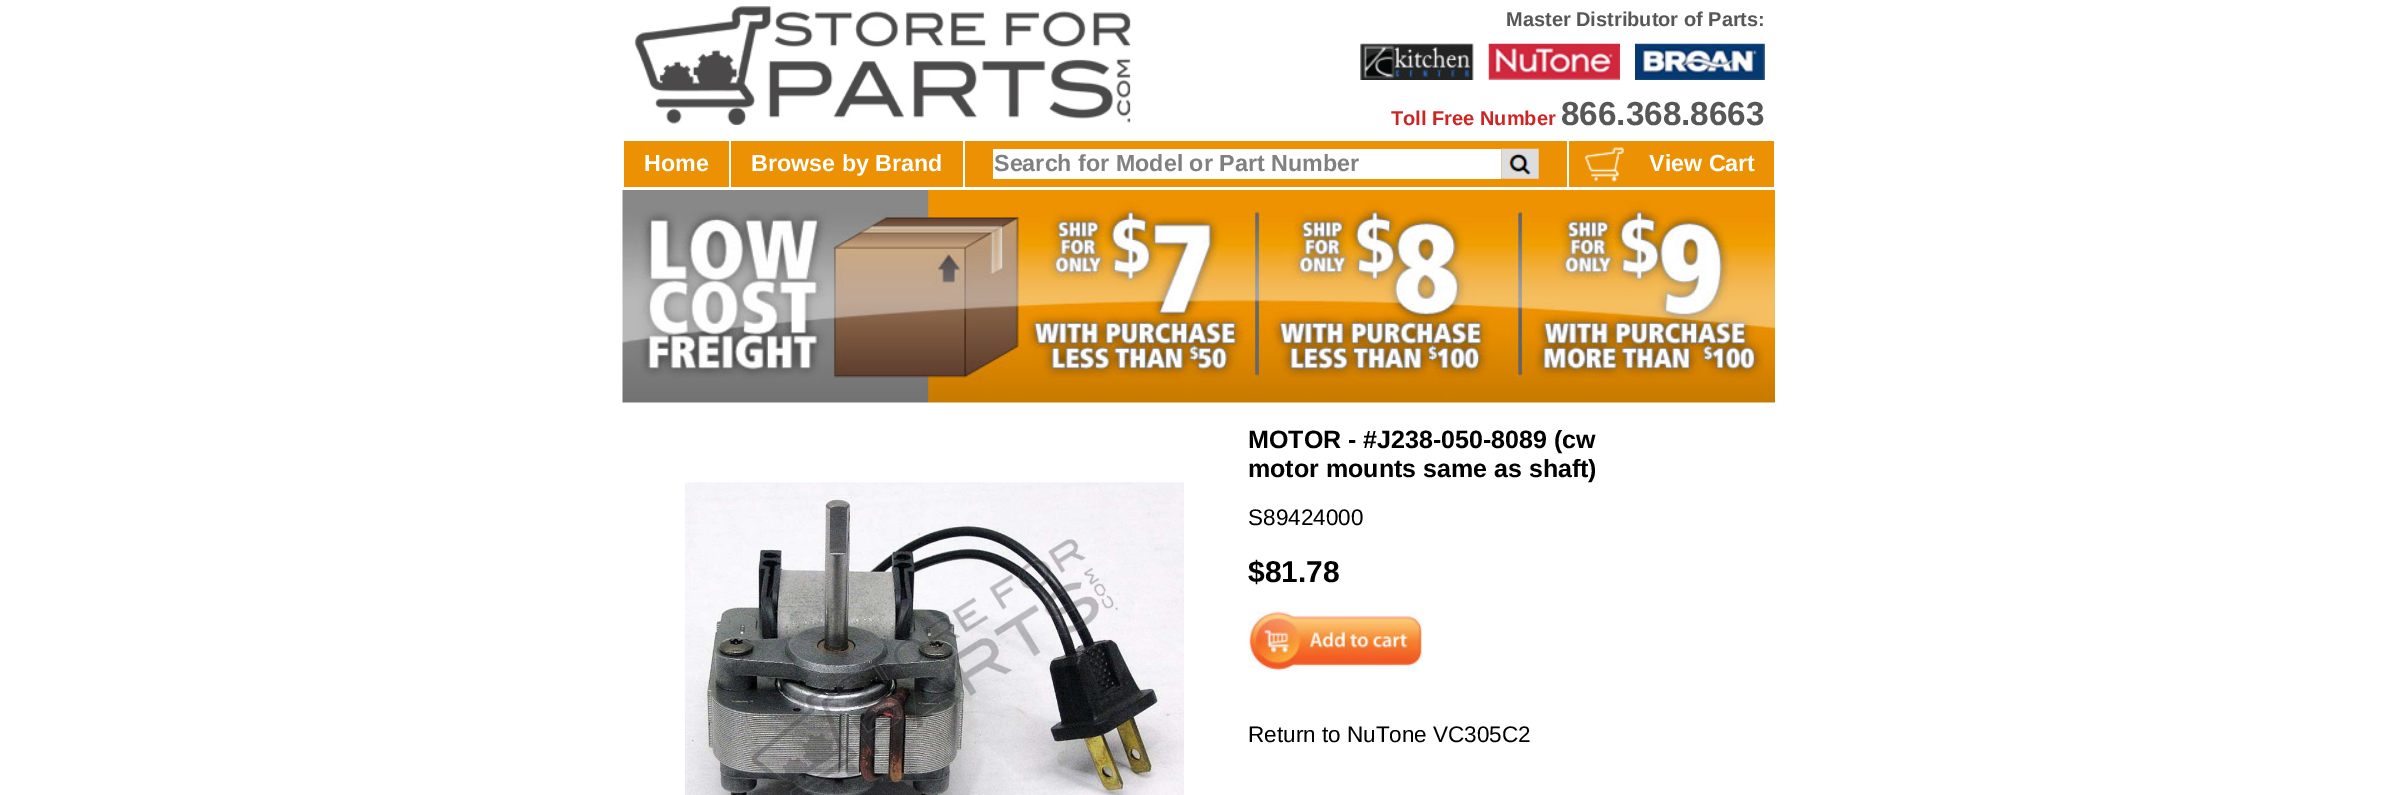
%!PS
<< /PageSize [2397 795] >> setpagedevice
/picture { 5 dict begin { /h /w /y /x /name } { exch def } forall
  gsave x y translate w h scale
  w h 8 [w 0 0 h 0 0] name (r) file false 3 colorimage grestore end } def
0 795 translate 1 -1 scale
4 setmiterlimit
1 setgray
0 0 2397 795 rectfill
(img1.rgb) 634 6 497 119 picture
/LiberationSans-Bold [20 0 0 -20 0 0] selectfont
0.341 setgray
1506 26 moveto (Master Distributor of Parts:) show
(img2.rgb) 1360 43 114 37 picture
(img3.rgb) 1488 43 132 37 picture
(img4.rgb) 1635 43 130 37 picture
0.804 0.145 0.141 setrgbcolor
1391 125 moveto (Toll Free Number) show
/LiberationSans-Bold [33.25 0 0 -33.25 0 0] selectfont
0.341 setgray
1561 125 moveto (866.368.8663) show
0.925 0.569 0.016 setrgbcolor
624 141 105 46 rectfill
/LiberationSans-Bold [23.3 0 0 -23.3 0 0] selectfont
1 setgray
644 171 moveto (Home) show
0.925 0.569 0.016 setrgbcolor
731 141 232 46 rectfill
1 setgray
751 171 moveto (Browse by Brand) show
0.925 0.569 0.016 setrgbcolor
965 141 602 46 rectfill
1 setgray
993 149 508 30 rectfill
0.502 setgray
994 171 moveto (Search for Model or Part Number) show
(img5.rgb) 1501 148 38 31 picture
0.925 0.569 0.016 setrgbcolor
1569 141 205 46 rectfill
(img6.rgb) 1584 147 46 35 picture
1 setgray
1649 171 moveto (View Cart) show
(img7.rgb) 622 190 1153 213 picture
(img8.rgb) 685 482 499 313 picture
/LiberationSans-Bold [25 0 0 -25 0 0] selectfont
0 setgray
1248 448 moveto (MOTOR - #J238-050-8089 \(cw) show
1248 477 moveto (motor mounts same as shaft\)) show
/LiberationSans-Regular [22.5 0 0 -22.5 0 0] selectfont
1248 525 moveto (S89424000) show
/LiberationSans-Bold [30 0 0 -30 0 0] selectfont
1248 582 moveto ($81.78) show
(img9.rgb) 1247 611 176 60 picture
/LiberationSans-Regular [22.5 0 0 -22.5 0 0] selectfont
1248 742 moveto (Return to NuTone VC305C2) show
showpage
